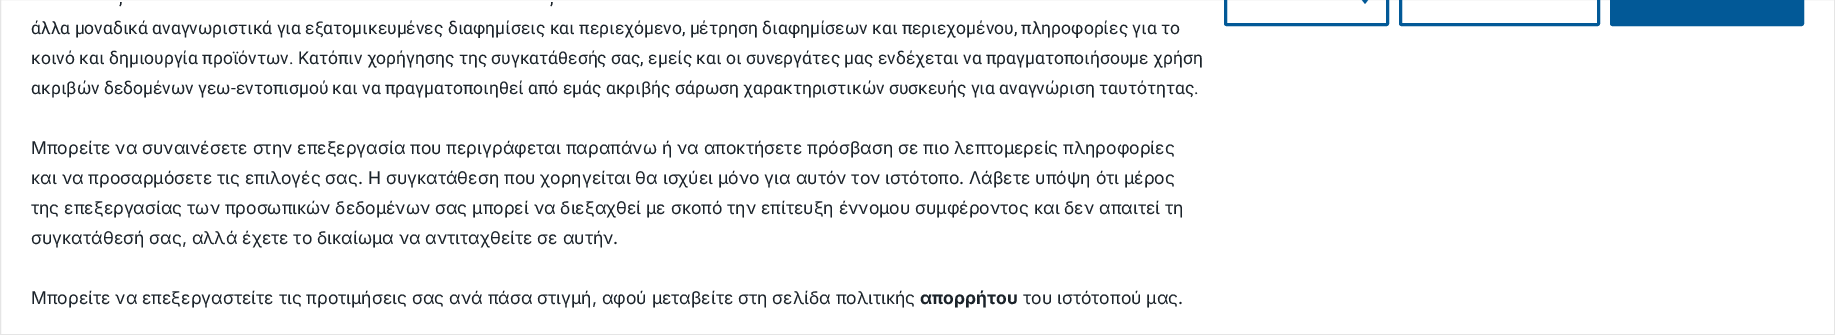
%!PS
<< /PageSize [1835 335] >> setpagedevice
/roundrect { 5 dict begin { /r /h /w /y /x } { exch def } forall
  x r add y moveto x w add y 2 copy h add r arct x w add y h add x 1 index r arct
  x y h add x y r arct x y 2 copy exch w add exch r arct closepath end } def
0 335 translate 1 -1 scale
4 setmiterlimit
1 setgray
0 0 1835 335 rectfill
0.898 setgray
0.5 -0.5 1834 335 rectstroke
/Roboto-Regular [17.5 0 0 -17.5 0 0] selectfont
0.106 0.137 0.165 setrgbcolor
119 4 moveto (,) show
550 4 moveto (,) show
31 34 moveto (άλλα μοναδικά αναγνωριστικά για εξατομικευμένες διαφημίσεις και περιεχόμενο, μέτρηση διαφημίσεων και περιεχομένου, πληροφορίες για το) show
31 64 moveto (κοινό και δημιουργία προϊόντων. Κατόπιν χορήγησης της συγκατάθεσής σας, εμείς και οι συνεργάτες μας ενδέχεται να πραγματοποιήσουμε χρήση) show
31 94 moveto (ακριβών δεδομένων γεω-εντοπισμού και να πραγματοποιηθεί από εμάς ακριβής σάρωση χαρακτηριστικών συσκευής για αναγνώριση ταυτότητας.) show
/Inter-Regular [17.5 0 0 -17.5 0 0] selectfont
31 154 moveto (Μπορείτε να συναινέσετε στην επεξεργασία που περιγράφεται παραπάνω ή να αποκτήσετε πρόσβαση σε πιο λεπτομερείς πληροφορίες) show
31 184 moveto (και να προσαρμόσετε τις επιλογές σας. Η συγκατάθεση που χορηγείται θα ισχύει μόνο για αυτόν τον ιστότοπο. Λάβετε υπόψη ότι μέρος) show
31 214 moveto (της επεξεργασίας των προσωπικών δεδομένων σας μπορεί να διεξαχθεί με σκοπό την επίτευξη έννομου συμφέροντος και δεν απαιτεί τη) show
31 244 moveto (συγκατάθεσή σας, αλλά έχετε το δικαίωμα να αντιταχθείτε σε αυτήν.) show
31 304 moveto (Μπορείτε να επεξεργαστείτε τις προτιμήσεις σας ανά πάσα στιγμή, αφού μεταβείτε στη σελίδα πολιτικής) show
/Inter-Bold [17.5 0 0 -17.5 0 0] selectfont
920 304 moveto (απορρήτου) show
/Inter-Regular [17.5 0 0 -17.5 0 0] selectfont
1023 304 moveto (του ιστότοπού μας.) show
0.008 0.349 0.592 setrgbcolor
3 setlinewidth
1225.5 -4.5 162 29 1 roundrect stroke
newpath 1359 -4 moveto 1371 -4 lineto 1365 4 lineto closepath fill
1400.5 -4.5 198 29 1 roundrect stroke
1611.5 -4.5 191 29 1 roundrect gsave fill grestore
stroke
showpage
